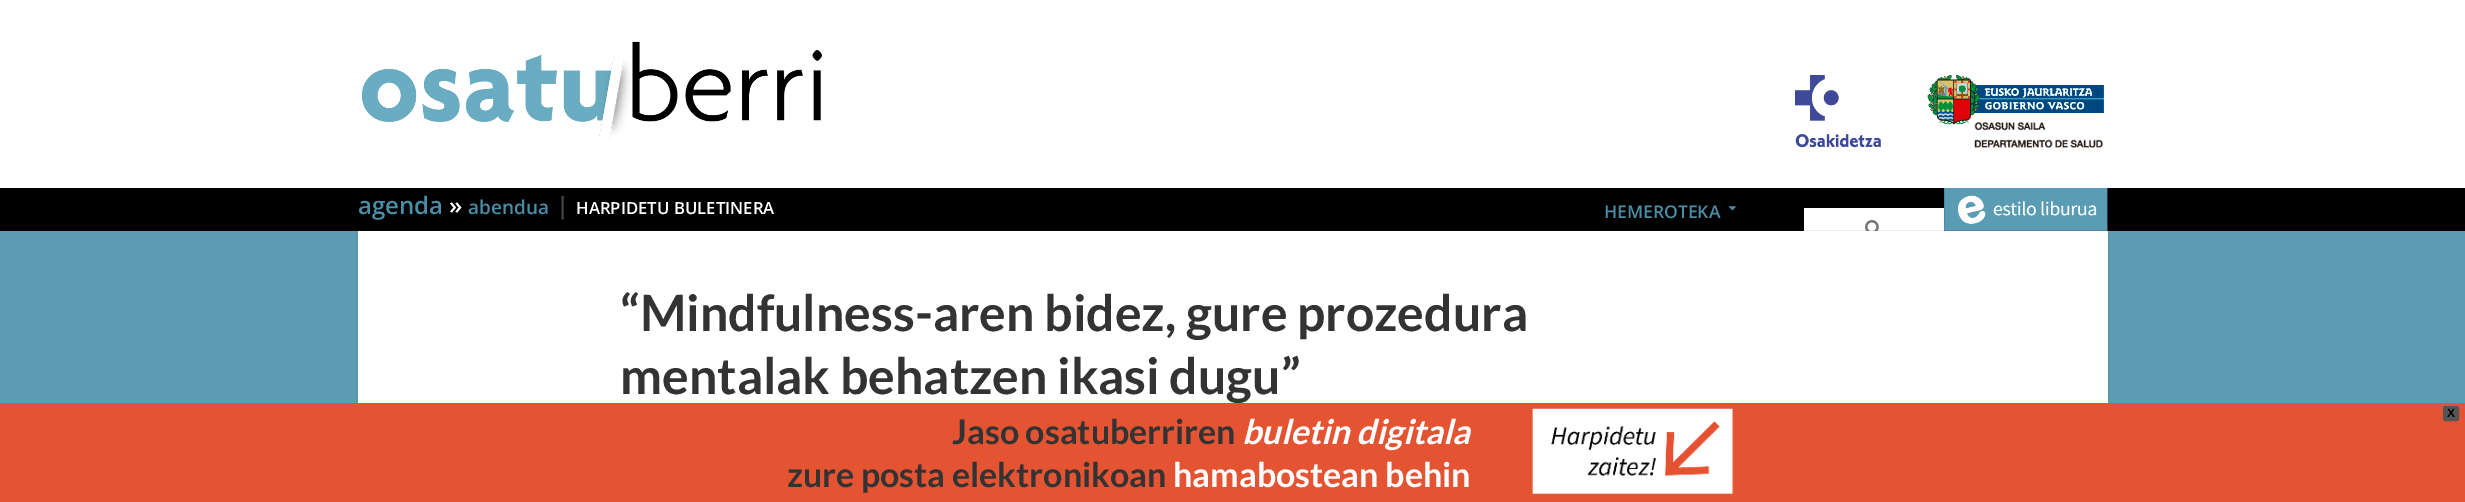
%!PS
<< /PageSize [2465 502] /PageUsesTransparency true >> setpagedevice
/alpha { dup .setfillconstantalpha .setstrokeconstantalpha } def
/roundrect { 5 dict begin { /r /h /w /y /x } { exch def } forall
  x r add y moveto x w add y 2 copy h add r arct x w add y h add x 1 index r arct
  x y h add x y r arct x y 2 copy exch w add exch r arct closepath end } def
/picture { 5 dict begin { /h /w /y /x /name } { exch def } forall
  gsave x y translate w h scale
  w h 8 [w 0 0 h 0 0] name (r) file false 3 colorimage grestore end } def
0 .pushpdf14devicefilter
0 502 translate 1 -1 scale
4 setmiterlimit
0.361 0.616 0.706 setrgbcolor
0 0 2465 502 rectfill
1 setgray
0 0 2465 188 rectfill
(img1.rgb) 361 41 461 99 picture
(img2.rgb) 1795 75 310 73 picture
0 setgray
0 188 2465 43 rectfill
/OpenSans-SemiBold [24 0 0 -24 0 0] selectfont
0.29 0.553 0.651 setrgbcolor
358 214 moveto (agenda) show
1 setgray
449 214 moveto (») show
/OpenSans-SemiBold [19 0 0 -19 0 0] selectfont
0.29 0.553 0.651 setrgbcolor
468 214 moveto (abendua) show
/OpenSans-SemiBold [24 0 0 -24 0 0] selectfont
0.267 setgray
556 214 moveto (|) show
/OpenSans-SemiBold [16.75 0 0 -16.75 0 0] selectfont
1 setgray
576 214 moveto (HARPIDETU BULETINERA) show
/OpenSans-SemiBold [17.5 0 0 -17.5 0 0] selectfont
0.29 0.553 0.651 setrgbcolor
1604 218 moveto (HEMEROTEKA) show
(img3.rgb) 1728 206 8 5 picture
1 setgray
1804 208 140 23 rectfill
(img4.rgb) 1865 220 14 11 picture
(img5.rgb) 1944 188 164 43 picture
0.1 alpha
0.267 setgray
356.5 230.5 1752 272 rectstroke
1 alpha
1 setgray
358 231 1750 172 rectfill
/Lato-Bold [50 0 0 -50 0 0] selectfont
0.2 setgray
620 331 moveto (“Mindfulness-aren bidez, gure prozedura) show
620 394 moveto (mentalak behatzen ikasi dugu”) show
0.898 0.329 0.196 setrgbcolor
0 403 2465 99 rectfill
0.333 setgray
2443.5 406.5 15 14 2 roundrect gsave fill grestore
stroke
/LiberationSans-Bold [12 0 0 -12 0 0] selectfont
0 setgray
2447 417 moveto (X) show
/Lato-Bold [34 0 0 -34 0 0] selectfont
0.2 setgray
952 444 moveto (Jaso osatuberriren) show
/Lato-BoldItalic [34 0 0 -34 0 0] selectfont
1 setgray
1242 444 moveto (buletin digitala) show
/Lato-Bold [34 0 0 -34 0 0] selectfont
0.2 setgray
787 487 moveto (zure posta elektronikoan) show
1 setgray
1173 487 moveto (hamabostean behin) show
(img6.rgb) 1532 408 202 86 picture
.poppdf14devicefilter showpage
